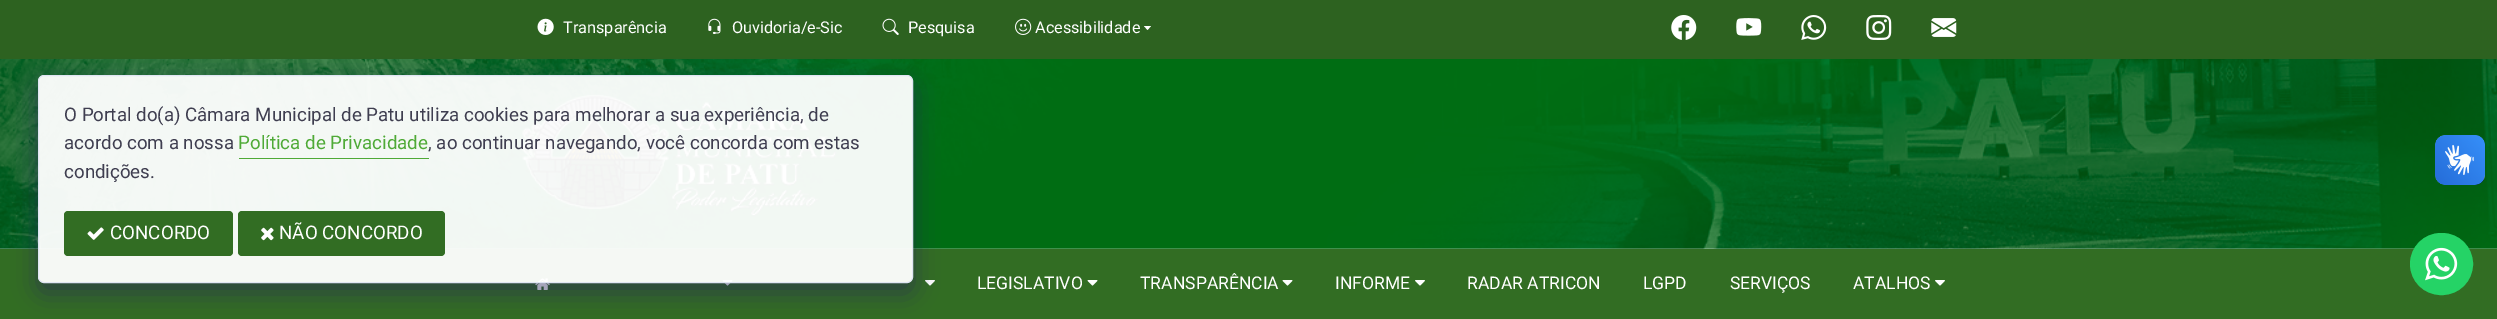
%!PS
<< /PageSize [2497 319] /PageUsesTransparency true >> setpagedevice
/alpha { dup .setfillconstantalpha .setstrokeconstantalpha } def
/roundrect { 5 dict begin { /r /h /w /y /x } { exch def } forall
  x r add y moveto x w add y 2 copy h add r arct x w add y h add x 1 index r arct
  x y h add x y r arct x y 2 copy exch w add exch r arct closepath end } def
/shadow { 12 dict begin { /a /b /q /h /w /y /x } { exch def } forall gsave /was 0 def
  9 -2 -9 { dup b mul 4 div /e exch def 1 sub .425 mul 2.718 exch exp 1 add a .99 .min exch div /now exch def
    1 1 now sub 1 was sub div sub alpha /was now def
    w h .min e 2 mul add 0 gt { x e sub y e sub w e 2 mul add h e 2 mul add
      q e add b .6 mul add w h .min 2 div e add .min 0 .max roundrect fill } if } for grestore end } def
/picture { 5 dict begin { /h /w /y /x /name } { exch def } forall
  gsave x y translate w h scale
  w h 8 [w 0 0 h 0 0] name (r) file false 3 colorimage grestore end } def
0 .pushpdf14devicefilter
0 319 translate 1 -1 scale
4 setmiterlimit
1 setgray
0 0 2497 319 rectfill
(img3.rgb) 0 59 2497 190 picture
0.176 0.384 0.125 setrgbcolor
0 0 2497 59 rectfill
(img13.rgb) 522 94 315 123 picture
0.196 0.427 0.137 setrgbcolor
0 249 2497 70 rectfill
(img14.rgb) 535 278 15 12 picture
(img15.rgb) 722 280 11 6 picture
(img16.rgb) 925 280 10 6 picture
gsave
newpath 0 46 moveto 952 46 lineto 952 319 lineto 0 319 lineto closepath 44 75 moveto 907 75 lineto 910.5 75 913 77.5 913 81 curveto 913 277 lineto 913 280.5 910.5 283 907 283 curveto 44 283 lineto 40.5 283 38 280.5 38 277 curveto 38 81 lineto 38 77.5 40.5 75 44 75 curveto closepath eoclip newpath
0.157 0.145 0.349 setrgbcolor
38 85 875 208 6 12.5 0.6 shadow
grestore
0.95 alpha
1 setgray
38.5 75.5 874 207 5.5 roundrect fill
1 alpha
0.878 0.898 0.953 setrgbcolor
38.5 75.5 874 207 5.5 roundrect stroke
/Roboto-Regular [18.75 0 0 -18.75 0 0] selectfont
0.247 0.243 0.314 setrgbcolor
64 121 moveto (O Portal do\(a\) Câmara Municipal de Patu utiliza cookies para melhorar a sua experiência, de) show
64 149 moveto (acordo com a nossa) show
0.31 0.667 0.216 setrgbcolor
238 149 moveto (Política de Privacidade) show
239 158 190 1 rectfill
0.247 0.243 0.314 setrgbcolor
428 149 moveto (, ao continuar navegando, você concorda com estas) show
64 178 moveto (condições.) show
0.196 0.427 0.137 setrgbcolor
64 211 169 45 4 roundrect fill
(img1.rgb) 87 227 17 13 picture
1 setgray
110 239 moveto (CONCORDO) show
0.196 0.427 0.137 setrgbcolor
238 211 207 45 4 roundrect fill
(img2.rgb) 261 227 13 14 picture
1 setgray
279 239 moveto (NÃO CONCORDO) show
(img4.rgb) 537 18 17 17 picture
/Roboto-Regular [16.25 0 0 -16.25 0 0] selectfont
563 33 moveto (Transparência) show
(img5.rgb) 708 18 13 16 picture
732 33 moveto (Ouvidoria/e-Sic) show
(img6.rgb) 882 18 17 17 picture
908 33 moveto (Pesquisa) show
(img7.rgb) 1015 18 17 17 picture
1035 33 moveto (Acessibilidade) show
newpath 1144 26 moveto 1151 26 lineto 1147.5 30 lineto closepath fill
(img8.rgb) 1671 15 26 25 picture
(img9.rgb) 1736 18 26 18 picture
(img10.rgb) 1801 15 26 25 picture
(img11.rgb) 1866 15 26 25 picture
(img12.rgb) 1931 18 26 19 picture
/Roboto-Regular [17.5 0 0 -17.5 0 0] selectfont
977 289 moveto (LEGISLATIVO) show
(img15.rgb) 1087 280 11 6 picture
1140 289 moveto (TRANSPARÊNCIA) show
(img15.rgb) 1282 280 11 6 picture
1335 289 moveto (INFORME) show
(img16.rgb) 1415 280 10 6 picture
1467 289 moveto (RADAR ATRICON) show
1643 289 moveto (LGPD) show
1730 289 moveto (SERVIÇOS) show
1853 289 moveto (ATALHOS) show
(img16.rgb) 1935 280 10 6 picture
(img17.rgb) 2435 135 50 50 picture
(img18.rgb) 2435 135 50 50 picture
0.145 0.827 0.4 setrgbcolor
2411.5 234.5 60 59 29.5 roundrect gsave fill grestore
3 setlinewidth
stroke
(img19.rgb) 2425 247 33 34 picture
.poppdf14devicefilter showpage
